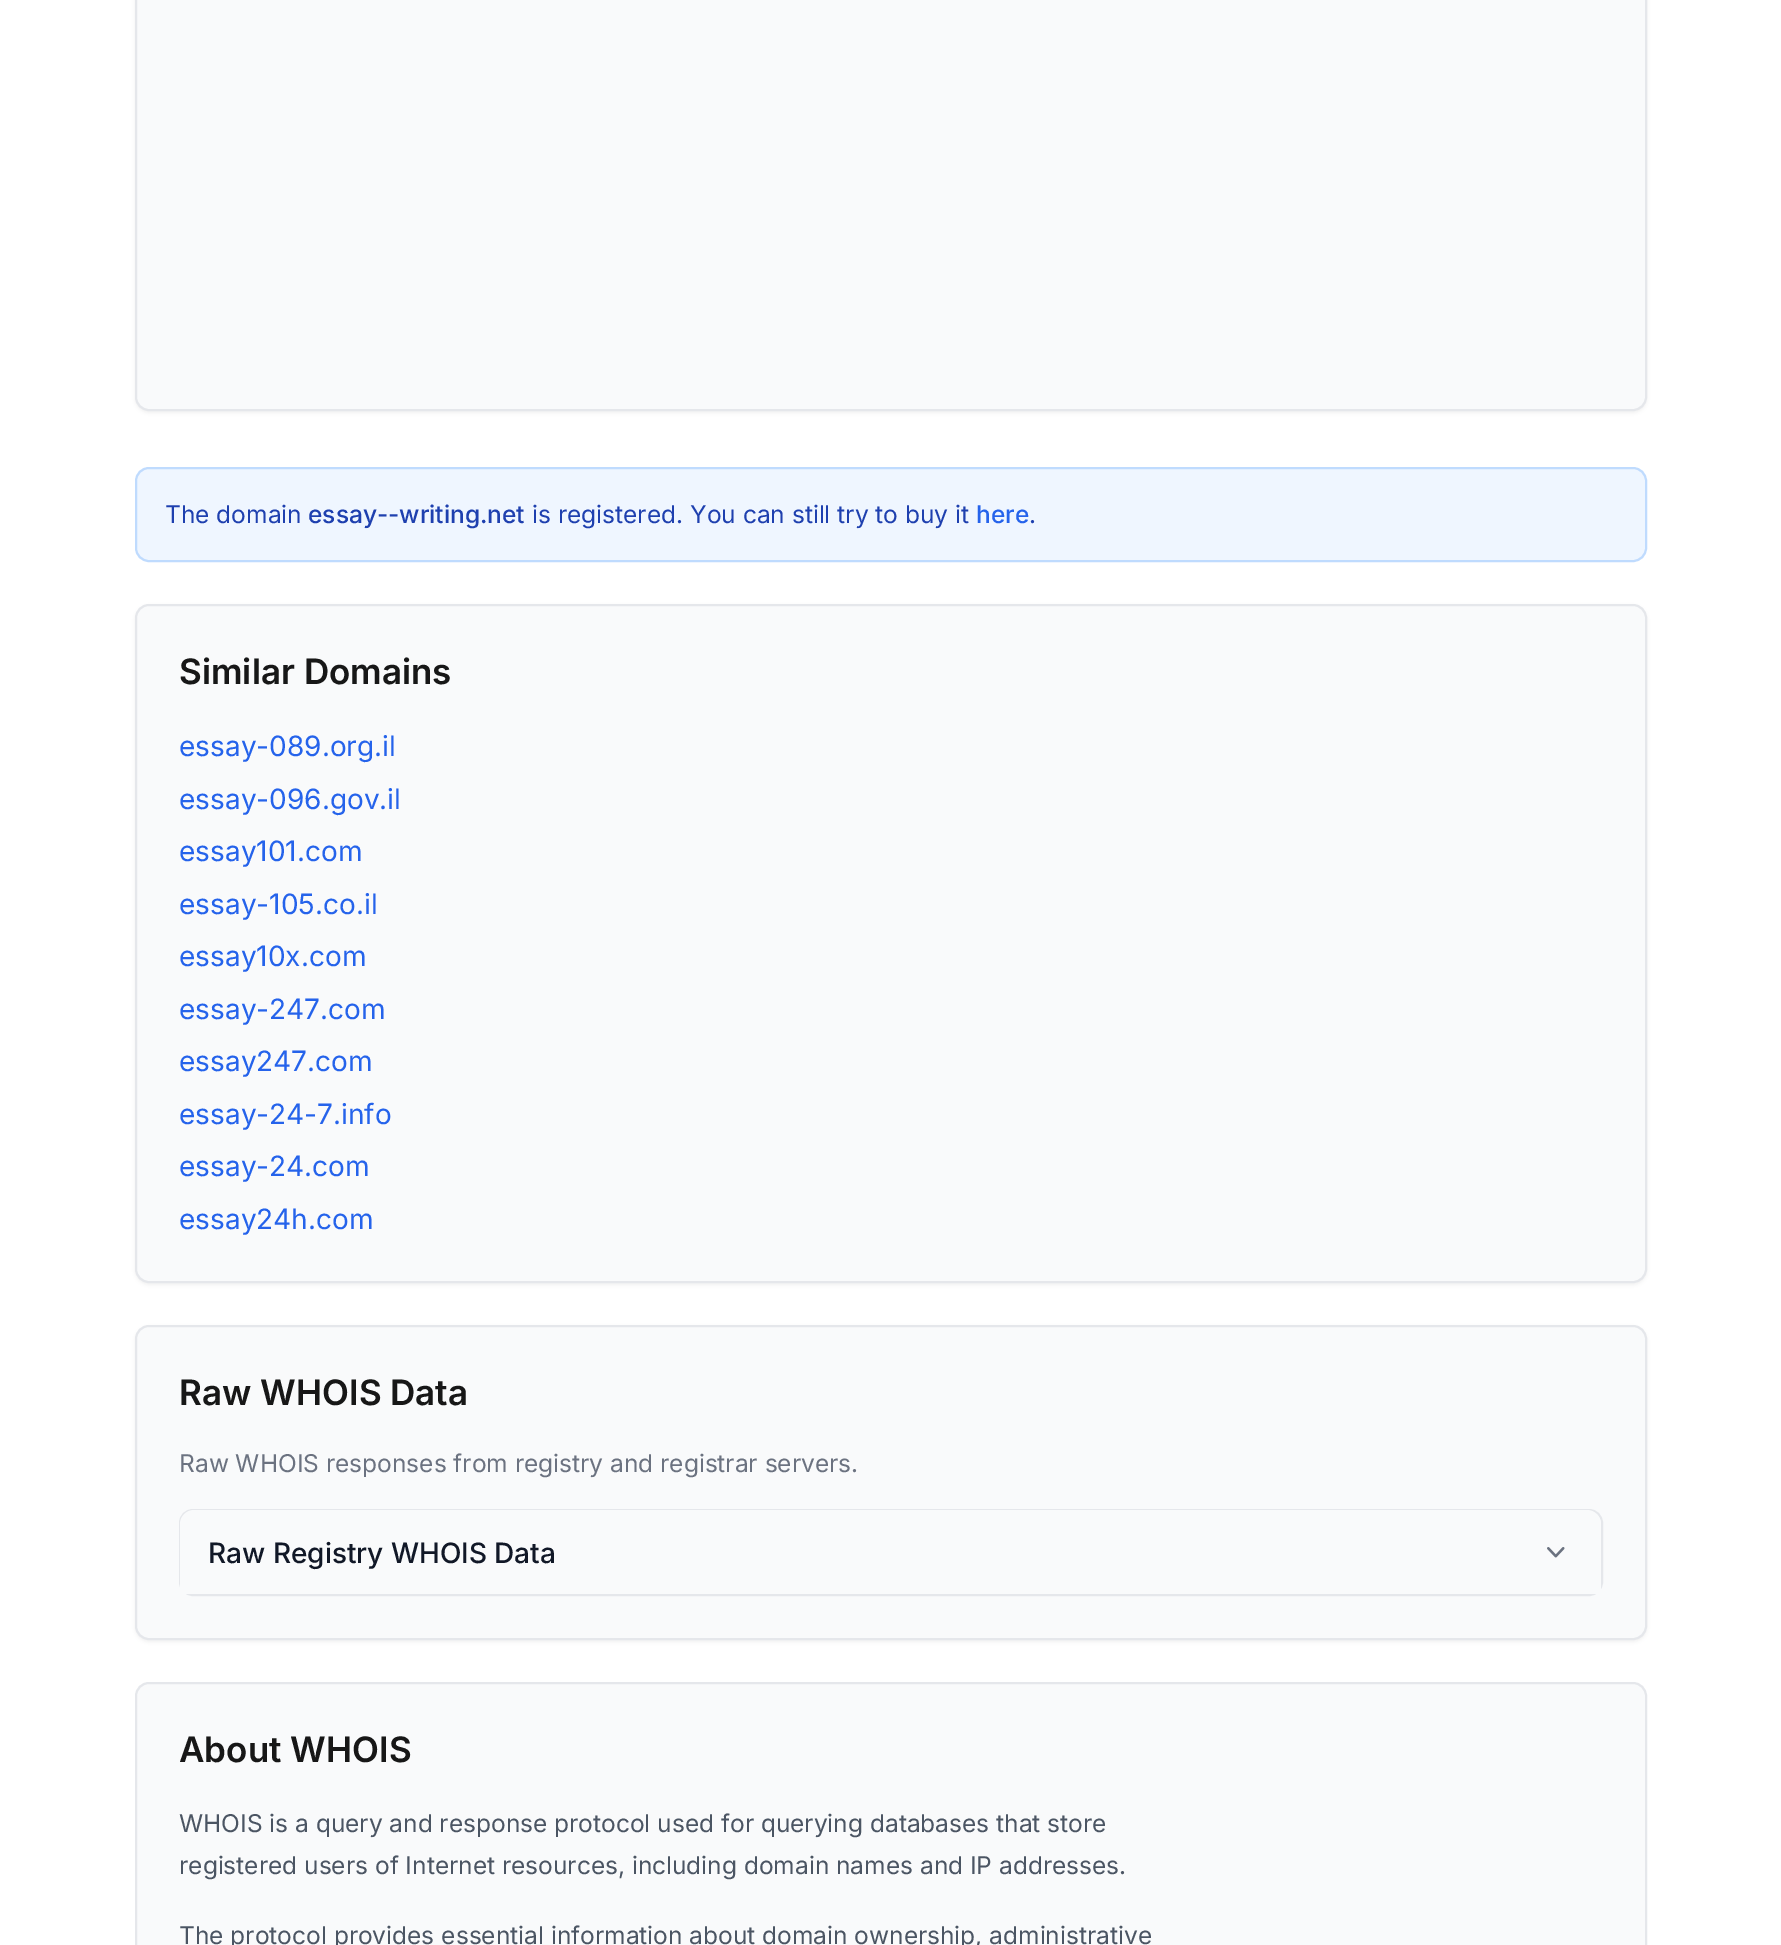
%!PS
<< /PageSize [1781 1945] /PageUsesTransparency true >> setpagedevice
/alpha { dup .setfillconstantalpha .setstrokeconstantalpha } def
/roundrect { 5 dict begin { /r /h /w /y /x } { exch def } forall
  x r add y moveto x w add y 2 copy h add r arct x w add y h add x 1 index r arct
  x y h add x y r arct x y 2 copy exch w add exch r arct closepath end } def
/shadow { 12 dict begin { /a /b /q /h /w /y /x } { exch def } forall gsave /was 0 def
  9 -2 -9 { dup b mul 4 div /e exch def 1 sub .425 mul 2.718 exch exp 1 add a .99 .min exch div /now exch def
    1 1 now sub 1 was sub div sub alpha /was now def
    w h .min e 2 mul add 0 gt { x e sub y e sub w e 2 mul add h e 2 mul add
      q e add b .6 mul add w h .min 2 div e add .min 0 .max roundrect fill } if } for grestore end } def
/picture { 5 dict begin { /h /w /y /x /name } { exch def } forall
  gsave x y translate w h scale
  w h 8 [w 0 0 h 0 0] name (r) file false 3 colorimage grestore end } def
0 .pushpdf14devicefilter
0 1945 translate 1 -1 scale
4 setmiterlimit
1 setgray
0 0 1781 1945 rectfill
0 setgray
135 -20 1512 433 14 2 0.05 shadow
0.976 0.98 0.984 setrgbcolor
136 -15 1510 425 13 roundrect gsave fill grestore
0.898 0.906 0.922 setrgbcolor
2 setlinewidth
stroke
0.937 0.965 1 setrgbcolor
136 468 1510 93 13 roundrect gsave fill grestore
0.749 0.859 0.996 setrgbcolor
stroke
/Inter-Regular [24.5 0 0 -24.5 0 0] selectfont
0.118 0.251 0.686 setrgbcolor
165 523 moveto (The domain) show
/Inter-Medium [24.5 0 0 -24.5 0 0] selectfont
308 523 moveto (essay--writing.net) show
/Inter-Regular [24.5 0 0 -24.5 0 0] selectfont
532 523 moveto (is registered. You can still try to buy it) show
/Inter-Medium [24.5 0 0 -24.5 0 0] selectfont
0.145 0.388 0.922 setrgbcolor
976 523 moveto (here) show
/Inter-Regular [24.5 0 0 -24.5 0 0] selectfont
0.118 0.251 0.686 setrgbcolor
1029 523 moveto (.) show
0 setgray
135 606 1512 679 14 2 0.05 shadow
0.976 0.98 0.984 setrgbcolor
136 605 1510 677 13 roundrect gsave fill grestore
0.898 0.906 0.922 setrgbcolor
stroke
/Inter-SemiBold [35 0 0 -35 0 0] selectfont
0.09 setgray
179 684 moveto (Similar Domains) show
/Inter-Regular [28 0 0 -28 0 0] selectfont
0.145 0.388 0.922 setrgbcolor
179 756 moveto (essay-089.org.il) show
179 809 moveto (essay-096.gov.il) show
179 861 moveto (essay101.com) show
179 914 moveto (essay-105.co.il) show
179 966 moveto (essay10x.com) show
179 1019 moveto (essay-247.com) show
179 1071 moveto (essay247.com) show
179 1124 moveto (essay-24-7.info) show
179 1176 moveto (essay-24.com) show
179 1229 moveto (essay24h.com) show
0 setgray
135 1327 1512 315 14 2 0.05 shadow
0.976 0.98 0.984 setrgbcolor
136 1326 1510 313 13 roundrect gsave fill grestore
0.898 0.906 0.922 setrgbcolor
stroke
/Inter-SemiBold [35 0 0 -35 0 0] selectfont
0.09 setgray
179 1405 moveto (Raw WHOIS Data) show
/Inter-Regular [24.5 0 0 -24.5 0 0] selectfont
0.42 0.447 0.502 setrgbcolor
179 1472 moveto (Raw WHOIS responses from registry and registrar servers.) show
0.898 0.906 0.922 setrgbcolor
180 1510 1422 85 13 roundrect stroke
0.976 0.98 0.984 setrgbcolor
newpath 194 1510 moveto 1587 1510 lineto 1594.5 1510 1601 1516.5 1601 1524 curveto 1601 1594 lineto 180 1594 lineto 180 1524 lineto 180 1516.5 186.5 1510 194 1510 curveto closepath fill
/Inter-Medium [28 0 0 -28 0 0] selectfont
0.067 0.094 0.153 setrgbcolor
208 1563 moveto (Raw Registry WHOIS Data) show
(img1.rgb) 1547 1547 18 11 picture
0.976 0.98 0.984 setrgbcolor
136 1683 1510 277 13 roundrect gsave fill grestore
0.898 0.906 0.922 setrgbcolor
stroke
/Inter-SemiBold [35 0 0 -35 0 0] selectfont
0.09 setgray
179 1762 moveto (About WHOIS) show
/Inter-Regular [24.5 0 0 -24.5 0 0] selectfont
0.294 0.333 0.388 setrgbcolor
179 1832 moveto (WHOIS is a query and response protocol used for querying databases that store) show
179 1874 moveto (registered users of Internet resources, including domain names and IP addresses.) show
179 1944 moveto (The protocol provides essential information about domain ownership, administrative) show
.poppdf14devicefilter showpage
